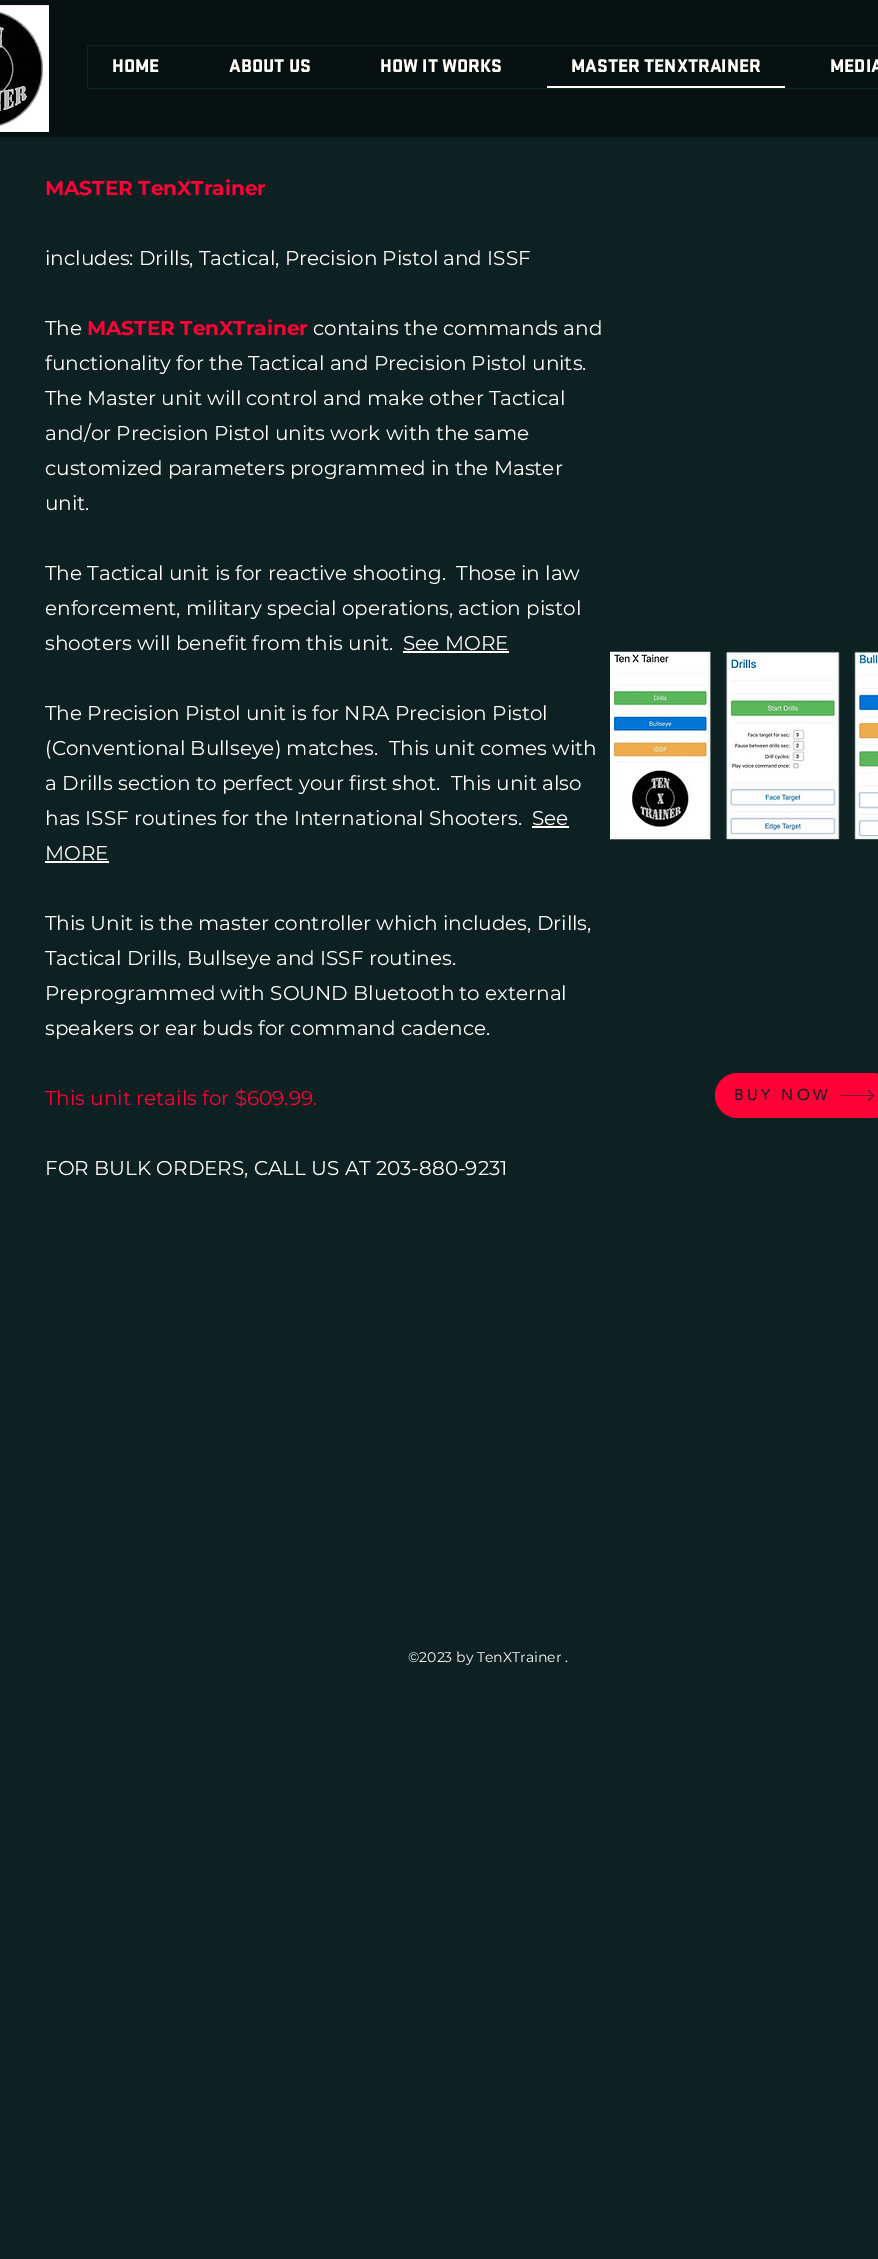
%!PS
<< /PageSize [878 2259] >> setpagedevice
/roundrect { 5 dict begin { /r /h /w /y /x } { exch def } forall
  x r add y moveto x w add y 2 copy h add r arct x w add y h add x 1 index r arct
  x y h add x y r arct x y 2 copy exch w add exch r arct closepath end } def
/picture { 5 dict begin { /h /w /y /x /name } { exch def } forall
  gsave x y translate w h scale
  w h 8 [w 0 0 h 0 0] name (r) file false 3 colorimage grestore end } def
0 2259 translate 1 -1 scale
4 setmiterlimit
0.051 0.129 0.137 setrgbcolor
0 0 878 2259 rectfill
0.024 0.063 0.067 setrgbcolor
0 0 878 137 rectfill
(img1.rgb) 0 5 49 127 picture
0.051 0.129 0.137 setrgbcolor
87.5 45.5 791 43 rectstroke
/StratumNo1-Black [19 0 0 -19 0 0] selectfont
1 0.996 0.973 setrgbcolor
112 72 moveto (HOME) show
229 72 moveto (ABOUT US) show
380 72 moveto (HOW IT WORKS) show
547 86 238 2 rectfill
571 72 moveto (MASTER TENXTRAINER) show
830 72 moveto (MEDIA) show
/Montserrat-Bold [20 0 0 -20 0 0] selectfont
1 0 0.216 setrgbcolor
45 195 moveto (MASTER TenXTrainer) show
/Montserrat-Regular [20 0 0 -20 0 0] selectfont
1 0.996 0.973 setrgbcolor
45 265 moveto (includes: Drills, Tactical, Precision Pistol and ISSF) show
45 335 moveto (The) show
/Montserrat-Bold [20 0 0 -20 0 0] selectfont
1 0 0.216 setrgbcolor
87 335 moveto (MASTER TenXTrainer) show
/Montserrat-Regular [20 0 0 -20 0 0] selectfont
1 0.996 0.973 setrgbcolor
313 335 moveto (contains the commands and) show
45 370 moveto (functionality for the Tactical and Precision Pistol units.) show
45 405 moveto (The Master unit will control and make other Tactical) show
45 440 moveto (and/or Precision Pistol units work with the same) show
45 475 moveto (customized parameters programmed in the Master) show
45 510 moveto (unit.) show
45 580 moveto (The Tactical unit is for reactive shooting.  Those in law) show
45 615 moveto (enforcement, military special operations, action pistol) show
45 650 moveto (shooters will benefit from this unit.) show
403 650 moveto (See MORE) show
403 651 106 2 rectfill
45 720 moveto (The Precision Pistol unit is for NRA Precision Pistol) show
45 755 moveto (\(Conventional Bullseye\) matches.  This unit comes with) show
45 790 moveto (a Drills section to perfect your first shot.  This unit also) show
45 825 moveto (has ISSF routines for the International Shooters.) show
532 825 moveto (See) show
532 826 37 2 rectfill
45 860 moveto (MORE) show
45 861 64 2 rectfill
45 930 moveto (This Unit is the master controller which includes, Drills,) show
45 965 moveto (Tactical Drills, Bullseye and ISSF routines.) show
45 1000 moveto (Preprogrammed with SOUND Bluetooth to external) show
45 1035 moveto (speakers or ear buds for command cadence.) show
1 0 0.216 setrgbcolor
45 1105 moveto (This unit retails for $609.99.) show
1 0.996 0.973 setrgbcolor
45 1175 moveto (FOR BULK ORDERS, CALL US AT 203-880-9231) show
(img2.rgb) 610 651 268 189 picture
1 0 0.216 setrgbcolor
715 1073 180 45 22.5 roundrect fill
/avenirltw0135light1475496-Bold [15 0 0 -15 0 0] selectfont
0.051 0.129 0.137 setrgbcolor
734 1100 moveto 3.75 0 (BUY NOW) ashow
newpath 868.5 1090 moveto 868 1090.5 lineto 873 1095.5 lineto 840.5 1095.5 lineto 840.5 1096 lineto 873 1096 lineto 868 1100.5 lineto 868.5 1101 lineto 874 1095.5 lineto closepath fill
/Montserrat-Regular [14 0 0 -14 0 0] selectfont
1 0.996 0.973 setrgbcolor
408 1662 moveto (©2023 by TenXTrainer .) show
showpage
